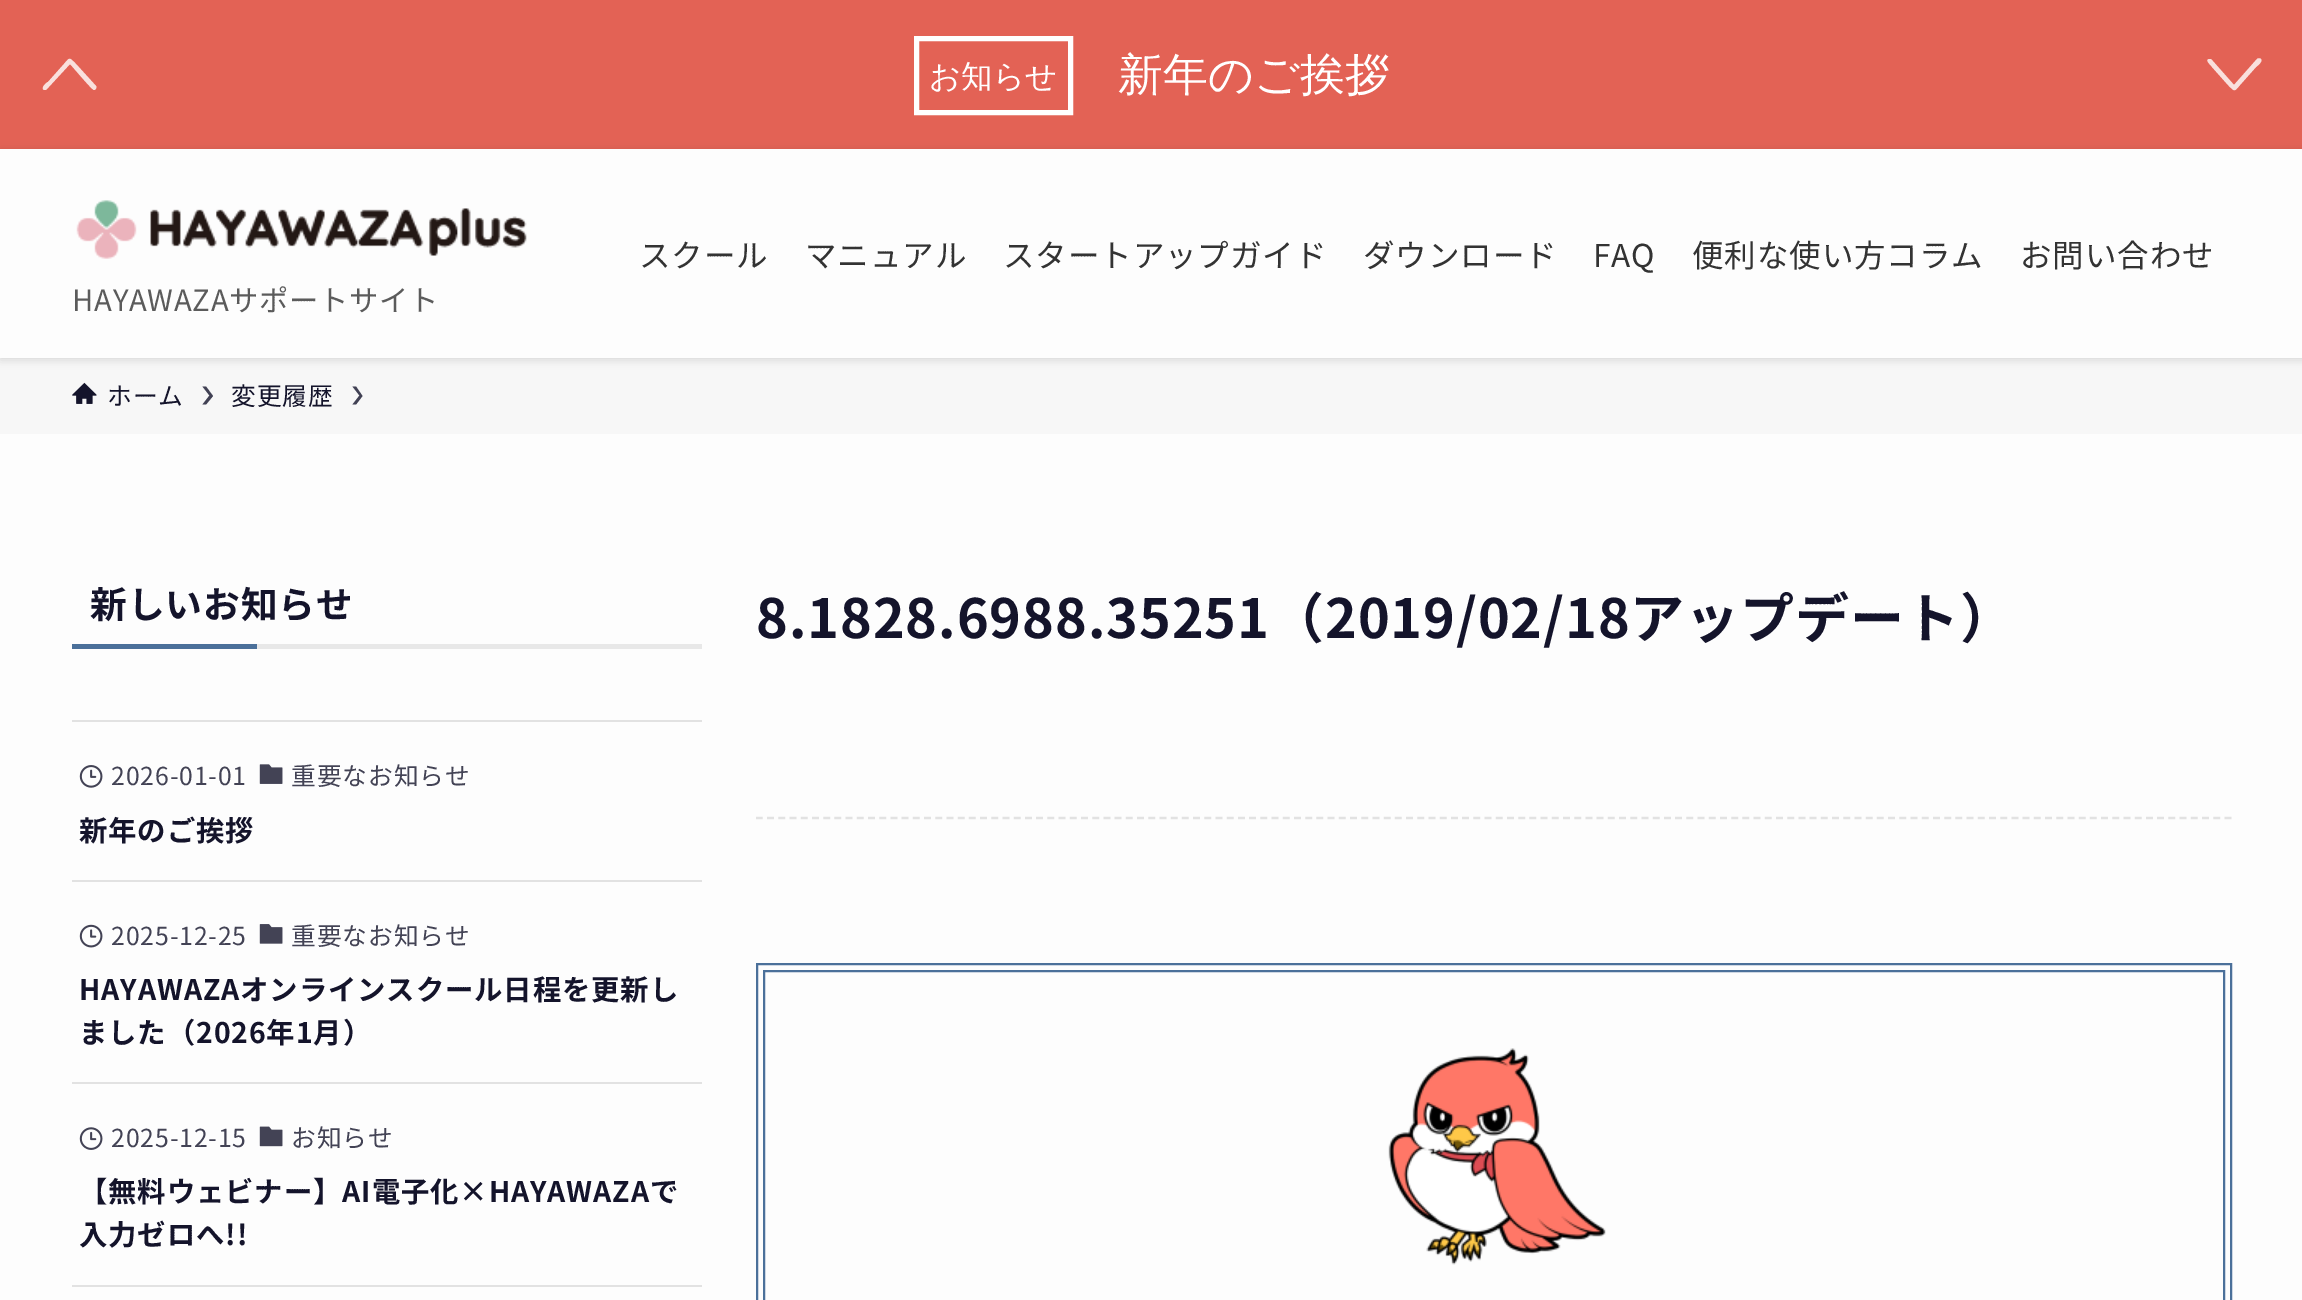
%!PS
<< /PageSize [2302 1300] /PageUsesTransparency true >> setpagedevice
/alpha { dup .setfillconstantalpha .setstrokeconstantalpha } def
/roundrect { 5 dict begin { /r /h /w /y /x } { exch def } forall
  x r add y moveto x w add y 2 copy h add r arct x w add y h add x 1 index r arct
  x y h add x y r arct x y 2 copy exch w add exch r arct closepath end } def
/shadow { 12 dict begin { /a /b /q /h /w /y /x } { exch def } forall gsave /was 0 def
  9 -2 -9 { dup b mul 4 div /e exch def 1 sub .425 mul 2.718 exch exp 1 add a .99 .min exch div /now exch def
    1 1 now sub 1 was sub div sub alpha /was now def
    w h .min e 2 mul add 0 gt { x e sub y e sub w e 2 mul add h e 2 mul add
      q e add b .6 mul add w h .min 2 div e add .min 0 .max roundrect fill } if } for grestore end } def
/picture { 5 dict begin { /h /w /y /x /name } { exch def } forall
  gsave x y translate w h scale
  w h 8 [w 0 0 h 0 0] name (r) file false 3 colorimage grestore end } def
0 .pushpdf14devicefilter
0 1300 translate 1 -1 scale
4 setmiterlimit
0.992 setgray
0 0 2302 1300 rectfill
0.89 0.384 0.333 setrgbcolor
0 0 2302 149 rectfill
0.976 0.878 0.867 setrgbcolor
newpath 96 86 moveto 76 64 lineto 69 57 70 57 64 64 curveto 48 82 lineto 47 82 40 88 44 90 curveto 46 90 lineto 70 64 lineto 73 67 92 90 94 90 curveto 96 90 97 87 96 86 curveto eofill
1 setgray
5 setlinewidth
916.5 38.5 154 74 rectstroke
/WenQuanYiZenHei-Medium [31.5 0 0 -31.5 0 0] selectfont
929 87 moveto (お知らせ) show
/WenQuanYiZenHei-Medium [45 0 0 -45 0 0] selectfont
1118 90 moveto (新年のご挨拶) show
0.976 0.878 0.867 setrgbcolor
newpath 2261 59 moveto 2260 58 2258 58 2257 59 curveto 2234 85 lineto 2211 59 lineto 2209 59 lineto 2204 60 2212 66 2212 67 curveto 2228 85 lineto 2235 92 2234 92 2240 85 curveto 2256 67 lineto 2257 66 2263 62 2261 59 curveto eofill
0.969 setgray
0 358 2302 76 rectfill
0 setgray
0 151 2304 209 0 4.5 0.12 shadow
0.992 setgray
0 149 2302 209 rectfill
/NotoSansJP-Regular [31.5 0 0 -31.5 0 0] selectfont
0.2 setgray
639 267 moveto 0.9 0 (スクール) ashow
805 267 moveto 0.9 0 (マニュアル) ashow
1003 267 moveto 0.9 0 (スタートアップガイド) ashow
1363 267 moveto 0.9 0 (ダウンロード) ashow
1593 267 moveto 0.9 0 (FAQ) ashow
1692 267 moveto 0.9 0 (便利な使い方コラム) ashow
2020 267 moveto 0.9 0 (お問い合わせ) ashow
(img1.rgb) 76 200 451 59 picture
/NotoSansJP-Regular [29.25 0 0 -29.25 0 0] selectfont
0.357 setgray
72 311 moveto 0.75 0 (HAYAWAZAサポートサイト) ashow
(img2.rgb) 72 382 25 22 picture
/NotoSansJP-Regular [24.75 0 0 -24.75 0 0] selectfont
0.078 0.078 0.169 setrgbcolor
107 405 moveto 0.9 0 (ホーム) ashow
0.255 0.255 0.329 setrgbcolor
newpath 206 386.5 moveto 202.5 386.5 lineto 209.5 395.5 lineto 202.5 404.5 lineto 206 404.5 lineto 213 396 lineto closepath fill
0.078 0.078 0.169 setrgbcolor
231 405 moveto 0.9 0 (変更履歴) ashow
0.255 0.255 0.329 setrgbcolor
newpath 356 386.5 moveto 352.5 386.5 lineto 359.5 395.5 lineto 352.5 404.5 lineto 356 404.5 lineto 362.5 396 lineto closepath fill
/NotoSansJP-Bold [36.75 0 0 -36.75 0 0] selectfont
0.078 0.078 0.169 setrgbcolor
90 618 moveto 0.9 0 (新しいお知らせ) ashow
0.294 0.439 0.604 setrgbcolor
72 644 185 5 rectfill
0.91 setgray
257 644 445 5 rectfill
0.886 setgray
72 720 630 2 rectfill
72 880 630 2 rectfill
(img3.rgb) 79 765 24 23 picture
/NotoSansJP-Regular [24.75 0 0 -24.75 0 0] selectfont
0.263 0.263 0.333 setrgbcolor
111 785 moveto 0.9 0 (2026-01-01) ashow
(img4.rgb) 259 764 24 20 picture
291 785 moveto 0.9 0 (重要なお知らせ) ashow
/NotoSansJP-Bold [28.35 0 0 -28.35 0 0] selectfont
0.078 0.078 0.169 setrgbcolor
79 841 moveto 0.9 0 (新年のご挨拶) ashow
0.886 setgray
72 1082 630 2 rectfill
(img5.rgb) 79 924 24 24 picture
/NotoSansJP-Regular [24.75 0 0 -24.75 0 0] selectfont
0.263 0.263 0.333 setrgbcolor
111 945 moveto 0.9 0 (2025-12-25) ashow
(img6.rgb) 259 924 24 20 picture
291 945 moveto 0.9 0 (重要なお知らせ) ashow
/NotoSansJP-Bold [28.35 0 0 -28.35 0 0] selectfont
0.078 0.078 0.169 setrgbcolor
79 1000 moveto 0.9 0 (HAYAWAZAオンラインスクール日程を更新し) ashow
79 1043 moveto 0.9 0 (ました（2026年1月）) ashow
0.886 setgray
72 1285 630 2 rectfill
(img7.rgb) 79 1127 24 23 picture
/NotoSansJP-Regular [24.75 0 0 -24.75 0 0] selectfont
0.263 0.263 0.333 setrgbcolor
111 1147 moveto 0.9 0 (2025-12-15) ashow
(img8.rgb) 259 1126 24 21 picture
291 1147 moveto 0.9 0 (お知らせ) ashow
/NotoSansJP-Bold [28.35 0 0 -28.35 0 0] selectfont
0.078 0.078 0.169 setrgbcolor
79 1202 moveto 0.9 0 (【無料ウェビナー】AI電子化×HAYAWAZAで) ashow
79 1245 moveto 0.9 0 (入力ゼロへ!!) ashow
/NotoSansJP-Bold [54 0 0 -54 0 0] selectfont
756 638 moveto 0.9 0 (8.1828.6988.35251（2019/02/18アップデート）) ashow
0.886 setgray
2.2 setlinewidth
[6.75 4.46] 0 setdash
newpath 756 818 moveto 2232 818 lineto stroke
0.294 0.439 0.604 setrgbcolor
2 setlinewidth
[] 0 setdash
757 964 1474 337 rectstroke
764 971 1460 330 rectstroke
(img9.rgb) 1388 1048 218 217 picture
.poppdf14devicefilter showpage
